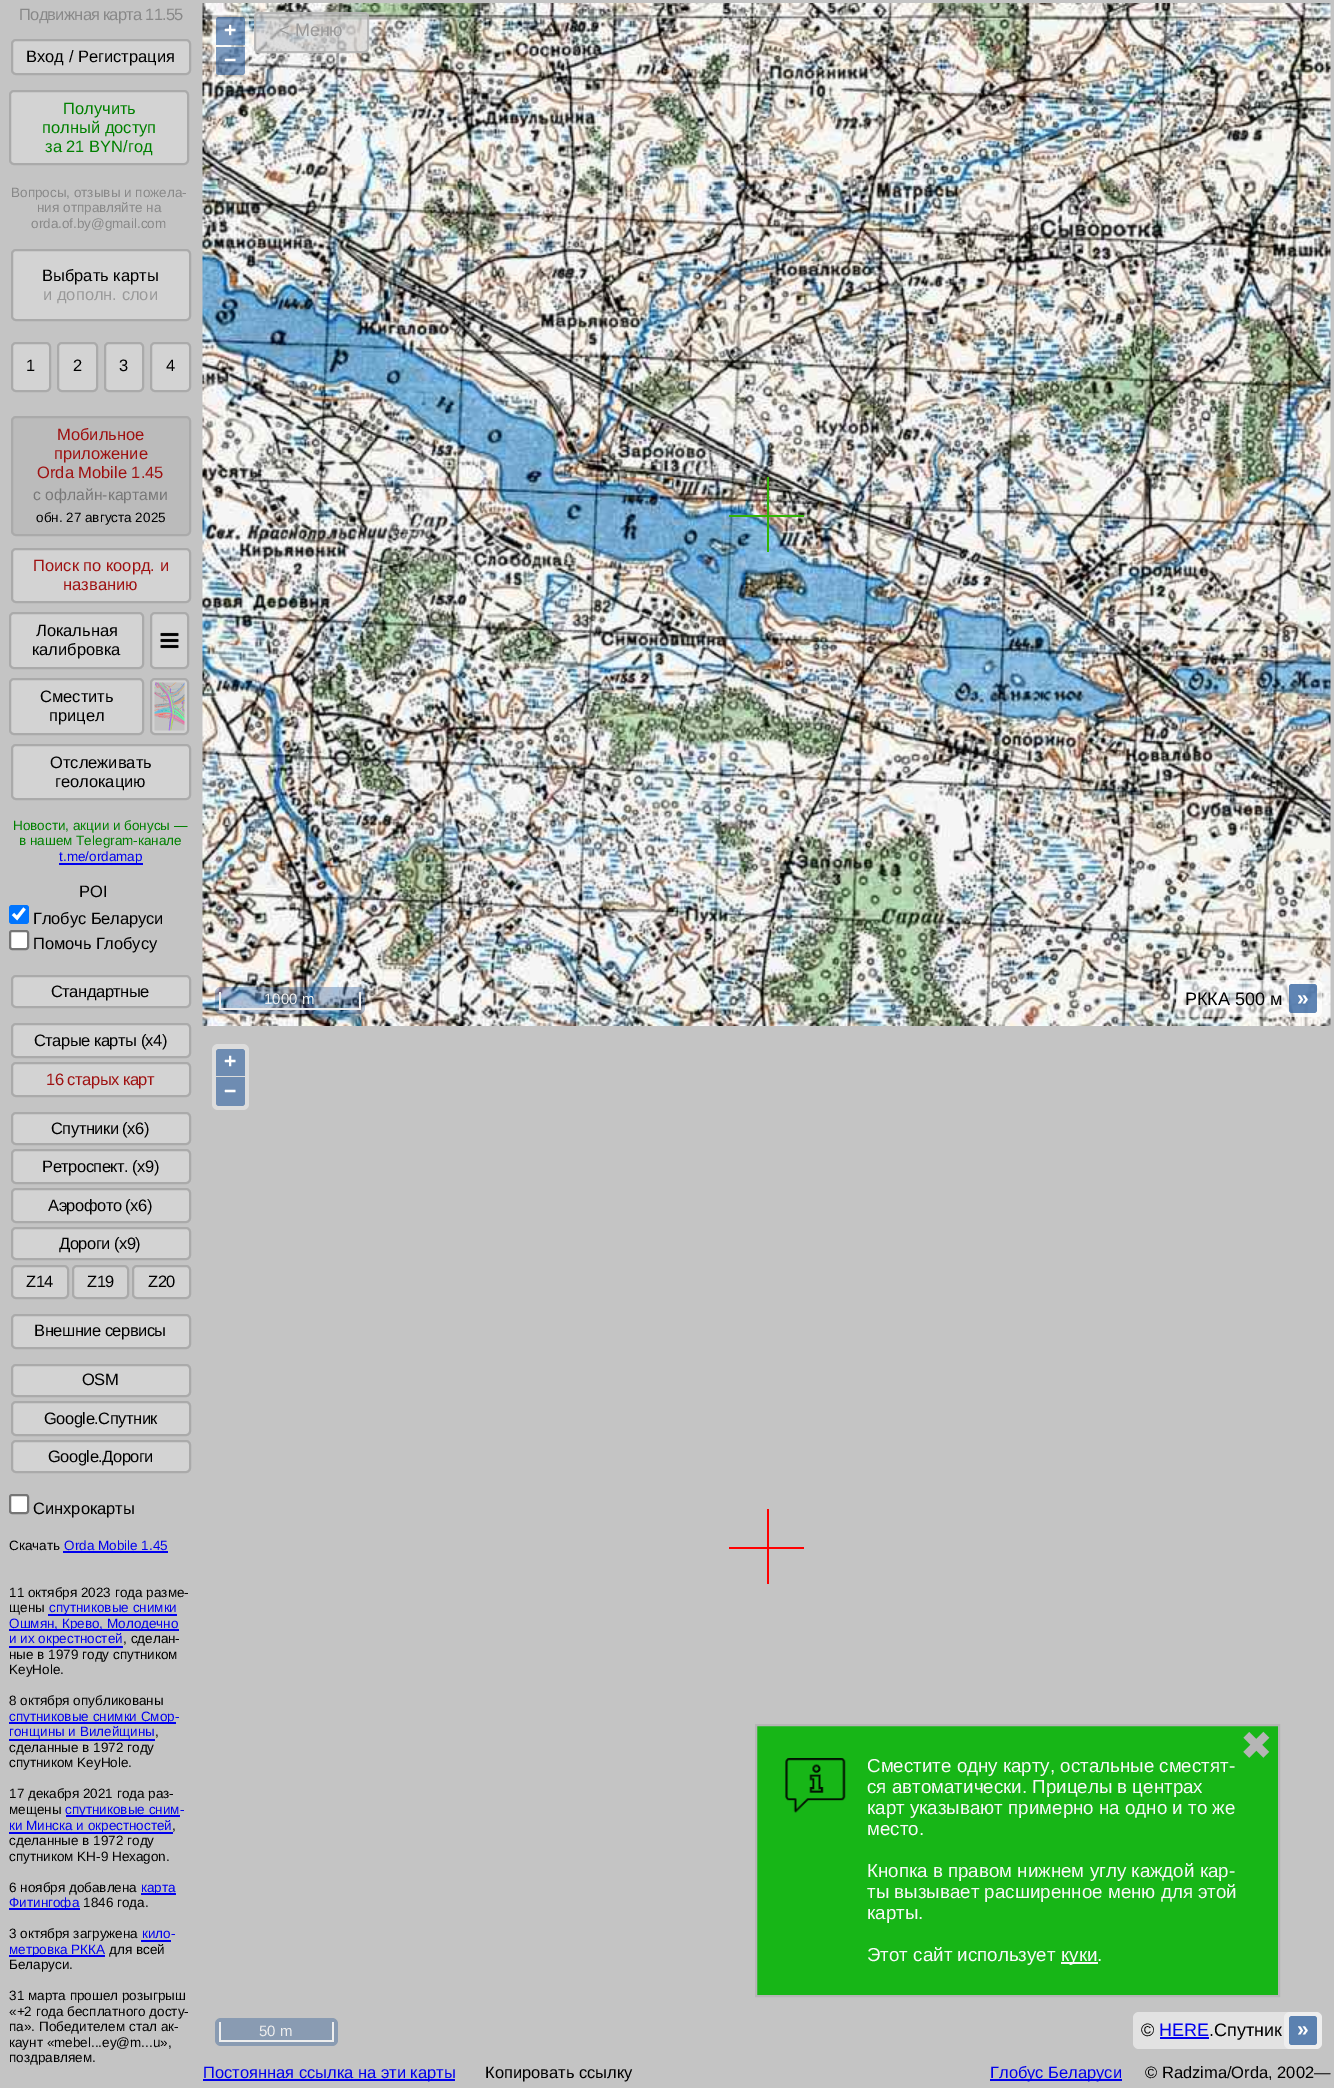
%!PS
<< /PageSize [1334 2088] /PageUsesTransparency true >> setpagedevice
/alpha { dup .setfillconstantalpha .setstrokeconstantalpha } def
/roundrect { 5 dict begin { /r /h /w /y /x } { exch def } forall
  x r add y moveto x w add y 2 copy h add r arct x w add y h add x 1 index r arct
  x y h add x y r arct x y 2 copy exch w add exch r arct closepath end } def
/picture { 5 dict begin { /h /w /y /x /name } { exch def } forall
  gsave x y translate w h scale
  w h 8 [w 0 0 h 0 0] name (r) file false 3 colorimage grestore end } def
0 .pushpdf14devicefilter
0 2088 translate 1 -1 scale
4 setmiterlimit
0.769 setgray
0 0 1334 2088 rectfill
/LiberationSans-Regular [16.5 0 0 -16.5 0 0] selectfont
0.533 setgray
19 20 moveto -0.75 0 (Подвижная карта 11.55) ashow
0.827 setgray
12 40 178 34 4 roundrect gsave fill grestore
0.667 setgray
2 setlinewidth
stroke
0 setgray
26 62 moveto (Вход / Регистрация) show
0.827 setgray
10 91 178 73 4 roundrect gsave fill grestore
0.667 setgray
stroke
0 0.502 0 setrgbcolor
63 114 moveto (Получить) show
42 133 moveto (полный доступ) show
45 152 moveto (за 21 BYN/год) show
/LiberationSans-Regular [13.5 0 0 -13.5 0 0] selectfont
0.533 setgray
11 197 moveto (Вопросы, отзывы и пожела-) show
37 212 moveto (ния отправляйте на) show
31 228 moveto (orda.of.by@gmail.com) show
0.827 setgray
12 250 178 70 4 roundrect gsave fill grestore
0.667 setgray
stroke
/LiberationSans-Regular [16.5 0 0 -16.5 0 0] selectfont
0 setgray
42 281 moveto (Выбрать карты) show
0.6 setgray
43 300 moveto (и дополн. слои) show
0.827 setgray
12 343 38 48 4 roundrect gsave fill grestore
0.667 setgray
stroke
0 setgray
26 371 moveto (1) show
0.827 setgray
58 343 39 48 4 roundrect gsave fill grestore
0.667 setgray
stroke
0 setgray
73 371 moveto (2) show
0.827 setgray
105 343 38 48 4 roundrect gsave fill grestore
0.667 setgray
stroke
0 setgray
119 371 moveto (3) show
0.827 setgray
151 343 39 48 4 roundrect gsave fill grestore
0.667 setgray
stroke
0 setgray
166 371 moveto (4) show
0.733 setgray
12 417 178 118 4 roundrect gsave fill grestore
0.667 setgray
stroke
0.62 0.067 0.067 setrgbcolor
57 440 moveto (Мобильное) show
54 459 moveto (приложение) show
37 478 moveto (Orda Mobile 1.45) show
/LiberationSans-Regular [15.75 0 0 -15.75 0 0] selectfont
0.467 setgray
33 500 moveto (с офлайн-картами) show
/LiberationSans-Regular [13.5 0 0 -13.5 0 0] selectfont
0 setgray
36 522 moveto (обн. 27 августа 2025) show
0.827 setgray
12 549 178 53 4 roundrect gsave fill grestore
0.667 setgray
stroke
/LiberationSans-Regular [16.5 0 0 -16.5 0 0] selectfont
0.62 0.067 0.067 setrgbcolor
33 571 moveto (Поиск по коорд. и) show
63 590 moveto (названию) show
0.827 setgray
10 613 133 55 4 roundrect gsave fill grestore
0.667 setgray
stroke
0 setgray
36 636 moveto (Локальная) show
32 655 moveto (калибровка) show
0.827 setgray
151 613 37 55 4 roundrect gsave fill grestore
0.667 setgray
stroke
(img1.rgb) 160 632 19 17 picture
0.827 setgray
10 679 133 55 4 roundrect gsave fill grestore
0.667 setgray
stroke
0 setgray
40 702 moveto (Сместить) show
49 721 moveto (прицел) show
0.827 setgray
151 679 37 55 4 roundrect gsave fill grestore
0.667 setgray
stroke
(img2.rgb) 154 682 31 49 picture
0.827 setgray
12 745 178 54 4 roundrect gsave fill grestore
0.667 setgray
stroke
0 setgray
50 768 moveto (Отслеживать) show
55 787 moveto (геолокацию) show
/LiberationSans-Regular [13.5 0 0 -13.5 0 0] selectfont
0 0.502 0 setrgbcolor
13 830 moveto (Новости, акции и бонусы —) show
19 845 moveto (в нашем Telegram-канале) show
0 0 0.933 setrgbcolor
59 863 84 2 rectfill
59 861 moveto (t.me/ordamap) show
/LiberationSans-Regular [16.5 0 0 -16.5 0 0] selectfont
0 setgray
79 897 moveto (POI) show
0 0.459 1 setrgbcolor
9 905 20 19 3 roundrect fill
1 setgray
3.1 setlinewidth
newpath 13 914 moveto 17 918 lineto 24.5 908.5 lineto stroke
0 setgray
33 924 moveto -0.1 0 (Глобус Беларуси) ashow
1 setgray
10 931 18 18 2 roundrect gsave fill grestore
0.463 setgray
2 setlinewidth
stroke
0 setgray
33 949 moveto -0.1 0 (Помочь Глобусу) ashow
0.827 setgray
12 976 178 31 4 roundrect gsave fill grestore
0.667 setgray
stroke
0 setgray
51 997 moveto -0.5 0 (Стандартные) ashow
0.827 setgray
12 1024 178 33 4 roundrect gsave fill grestore
0.667 setgray
stroke
0 setgray
34 1046 moveto -0.5 0 (Старые карты \(x4\)) ashow
0.827 setgray
12 1063 178 33 4 roundrect gsave fill grestore
0.667 setgray
stroke
0.62 0.067 0.067 setrgbcolor
46 1085 moveto -0.5 0 (16 старых карт) ashow
0.827 setgray
12 1113 178 31 4 roundrect gsave fill grestore
0.667 setgray
stroke
0 setgray
51 1134 moveto -0.5 0 (Спутники \(x6\)) ashow
0.827 setgray
12 1150 178 33 4 roundrect gsave fill grestore
0.667 setgray
stroke
0 setgray
42 1172 moveto -0.5 0 (Ретроспект. \(x9\)) ashow
0.827 setgray
12 1189 178 33 4 roundrect gsave fill grestore
0.667 setgray
stroke
0 setgray
48 1211 moveto -0.5 0 (Аэрофото \(x6\)) ashow
0.827 setgray
12 1228 178 31 4 roundrect gsave fill grestore
0.667 setgray
stroke
0 setgray
59 1249 moveto -0.5 0 (Дороги \(x9\)) ashow
0.827 setgray
12 1266 56 32 4 roundrect gsave fill grestore
0.667 setgray
stroke
0 setgray
26 1287 moveto -0.5 0 (Z14) ashow
0.827 setgray
73 1266 55 32 4 roundrect gsave fill grestore
0.667 setgray
stroke
0 setgray
87 1287 moveto -0.5 0 (Z19) ashow
0.827 setgray
133 1266 57 32 4 roundrect gsave fill grestore
0.667 setgray
stroke
0 setgray
148 1287 moveto -0.5 0 (Z20) ashow
0.827 setgray
12 1315 178 33 4 roundrect gsave fill grestore
0.667 setgray
stroke
0 setgray
34 1336 moveto -0.5 0 (Внешние сервисы) ashow
0.827 setgray
12 1365 178 31 4 roundrect gsave fill grestore
0.667 setgray
stroke
0 setgray
82 1385 moveto -0.5 0 (OSM) ashow
0.827 setgray
12 1402 178 33 4 roundrect gsave fill grestore
0.667 setgray
stroke
0 setgray
44 1424 moveto -0.5 0 (Google.Спутник) ashow
0.827 setgray
12 1441 178 31 4 roundrect gsave fill grestore
0.667 setgray
stroke
0 setgray
48 1462 moveto -0.5 0 (Google.Дороги) ashow
1 setgray
10 1495 18 18 2 roundrect gsave fill grestore
0.463 setgray
stroke
0 setgray
33 1514 moveto (Синхрокарты) show
/LiberationSans-Regular [13.5 0 0 -13.5 0 0] selectfont
9 1550 moveto (Скачать) show
0 0 0.933 setrgbcolor
64 1550 moveto (Orda Mobile 1.45) show
63 1551 105 2 rectfill
0 setgray
9 1597 moveto (11 октября 2023 года разме-) show
9 1612 moveto (щены) show
0 0 0.933 setrgbcolor
48 1614 129 2 rectfill
49 1612 moveto (спутниковые снимки) show
9 1629 170 2 rectfill
9 1628 moveto (Ошмян, Крево, Молодечно) show
9 1643 moveto (и их окрестностей) show
9 1646 114 2 rectfill
0 setgray
123 1643 moveto (, сделан-) show
9 1659 moveto (ные в 1979 году спутником) show
9 1674 moveto (KeyHole.) show
9 1705 moveto (8 октября опубликованы) show
0 0 0.933 setrgbcolor
9 1722 167 2 rectfill
9 1721 moveto (спутниковые снимки Смор-) show
9 1736 moveto (гонщины и Вилейщины) show
9 1739 146 2 rectfill
0 setgray
155 1736 moveto (,) show
9 1752 moveto (сделанные в 1972 году) show
9 1767 moveto (спутником KeyHole.) show
9 1798 moveto (17 декабря 2021 года раз-) show
9 1814 moveto (мещены) show
0 0 0.933 setrgbcolor
66 1815 114 2 rectfill
65 1814 moveto (спутниковые сним-) show
9 1832 164 2 rectfill
9 1830 moveto (ки Минска и окрестностей) show
0 setgray
172 1830 moveto (,) show
9 1845 moveto (сделанные в 1972 году) show
9 1861 moveto (спутником KH-9 Hexagon.) show
9 1892 moveto (6 ноября добавлена) show
0 0 0.933 setrgbcolor
141 1893 35 2 rectfill
141 1892 moveto (карта) show
9 1908 71 2 rectfill
9 1907 moveto (Фитингофа) show
0 setgray
83 1907 moveto (1846 года.) show
9 1938 moveto (3 октября загружена) show
0 0 0.933 setrgbcolor
142 1938 moveto (кило-) show
141 1940 30 2 rectfill
9 1955 96 2 rectfill
9 1954 moveto (метровка РККА) show
0 setgray
109 1954 moveto (для всей) show
9 1969 moveto (Беларуси.) show
9 2000 moveto (31 марта прошел розыгрыш) show
9 2016 moveto («+2 года бесплатного досту-) show
9 2031 moveto (па». Победителем стал ак-) show
9 2047 moveto (каунт «mebel...ey@m...u»,) show
9 2062 moveto (поздравляем.) show
(img3.rgb) 202 3 1129 1023 picture
0.7 alpha
0.827 setgray
254 12 115 41 5 roundrect fill
0.667 setgray
255 13 113 39 4 roundrect stroke
/LiberationSans-Regular [18 0 0 -18 0 0] selectfont
1 alpha
0.6 setgray
279 36 moveto (< Меню) show
0.4 alpha
1 setgray
212 12 37 68 6 roundrect fill
0.5 alpha
0 0.235 0.533 setrgbcolor
newpath 219 17 moveto 242 17 lineto 243.5 17 245 18.5 245 20 curveto 245 45 lineto 216 45 lineto 216 20 lineto 216 18.5 217.5 17 219 17 curveto closepath fill
/LiberationSans-Bold [21 0 0 -21 0 0] selectfont
1 alpha
1 setgray
224 37 moveto (+) show
0.5 alpha
0 0.235 0.533 setrgbcolor
newpath 216 47 moveto 245 47 lineto 245 72 lineto 245 73.5 243.5 75 242 75 curveto 219 75 lineto 217.5 75 216 73.5 216 72 curveto closepath fill
1 alpha
1 setgray
224 67 moveto (−) show
0.4 alpha
1284 980 38 37 6 roundrect fill
0.5 alpha
0 0.235 0.533 setrgbcolor
1289 984 28 29 3 roundrect fill
0.3 alpha
215 987 150 27 6 roundrect fill
1 alpha
0.933 setgray
359 992 2 18 rectfill
219 1008 141 2 rectfill
219 992 2 18 rectfill
/LiberationSans-Regular [15 0 0 -15 0 0] selectfont
264 1004 moveto (1000 m) show
0.5 alpha
1 setgray
1176 980 146 37 6 roundrect fill
/LiberationSans-Regular [18 0 0 -18 0 0] selectfont
1 alpha
0 setgray
1185 1005 moveto (РККА 500 м) show
0.5 alpha
0 0.235 0.533 setrgbcolor
1289 984 28 29 3 roundrect fill
/LiberationSans-Bold [21 0 0 -21 0 0] selectfont
1 alpha
1 setgray
1297 1005 moveto (») show
0.192 0.706 0.016 setrgbcolor
767 477 2 75 rectfill
729 515 75 2 rectfill
0.863 setgray
212 1044 37 66 6 roundrect fill
0.431 0.549 0.698 setrgbcolor
newpath 219 1049 moveto 242 1049 lineto 243.5 1049 245 1050.5 245 1052 curveto 245 1076 lineto 216 1076 lineto 216 1052 lineto 216 1050.5 217.5 1049 219 1049 curveto closepath fill
1 setgray
224 1068 moveto (+) show
0.431 0.549 0.698 setrgbcolor
newpath 216 1077 moveto 245 1077 lineto 245 1103 lineto 245 1104.5 243.5 1106 242 1106 curveto 219 1106 lineto 217.5 1106 216 1104.5 216 1103 curveto closepath fill
1 setgray
224 1098 moveto (−) show
0.863 setgray
1284 2012 38 37 6 roundrect fill
0.431 0.549 0.698 setrgbcolor
1289 2016 28 29 3 roundrect fill
0.537 0.608 0.698 setrgbcolor
215 2018 123 28 6 roundrect fill
0.933 setgray
332 2022 2 20 rectfill
219 2040 114 2 rectfill
219 2022 2 20 rectfill
/LiberationSans-Regular [15 0 0 -15 0 0] selectfont
259 2036 moveto (50 m) show
0.5 alpha
1 setgray
1133 2012 189 37 6 roundrect fill
/LiberationSans-Regular [18 0 0 -18 0 0] selectfont
1 alpha
0 setgray
1141 2036 moveto (©) show
0 0 0.933 setrgbcolor
1159 2036 moveto (HERE) show
0 setgray
1209 2036 moveto (.Спутник) show
0 0 0.933 setrgbcolor
1160 2037 49 2 rectfill
0.5 alpha
0 0.235 0.533 setrgbcolor
1289 2016 28 29 3 roundrect fill
/LiberationSans-Bold [21 0 0 -21 0 0] selectfont
1 alpha
1 setgray
1297 2036 moveto (») show
1 0 0 setrgbcolor
767 1509 2 75 rectfill
729 1547 75 2 rectfill
0 0 0.933 setrgbcolor
203 2079 252 2 rectfill
/LiberationSans-Regular [16.5 0 0 -16.5 0 0] selectfont
203 2078 moveto (Постоянная ссылка на эти карты) show
0 setgray
485 2078 moveto (Копировать ссылку) show
0 0 0.933 setrgbcolor
990 2079 132 2 rectfill
990 2078 moveto (Глобус Беларуси) show
0 setgray
1145 2078 moveto (© Radzima/Orda, 2002—) show
0.09 0.714 0.09 setrgbcolor
newpath 756 1725 moveto 1279 1725 lineto 1279 1996 lineto 756 1996 lineto closepath gsave fill grestore
0.71 setgray
stroke
/DejaVuSans-Regular [39 0 0 -39 0 0] selectfont
1240 1759 moveto (✖) show
(img4.rgb) 785 1758 61 55 picture
/LiberationSans-Regular [18.75 0 0 -18.75 0 0] selectfont
0.976 setgray
867 1772 moveto (Сместите одну карту, остальные сместят-) show
867 1793 moveto (ся автоматически. Прицелы в центрах) show
867 1814 moveto (карт указывают примерно на одно и то же) show
867 1835 moveto (место.) show
867 1877 moveto (Кнопка в правом нижнем углу каждой кар-) show
867 1898 moveto (ты вызывает расширенное меню для этой) show
867 1919 moveto (карты.) show
867 1961 moveto (Этот сайт использует) show
1061 1962 37 2 rectfill
1061 1961 moveto (куки.) show
.poppdf14devicefilter showpage
